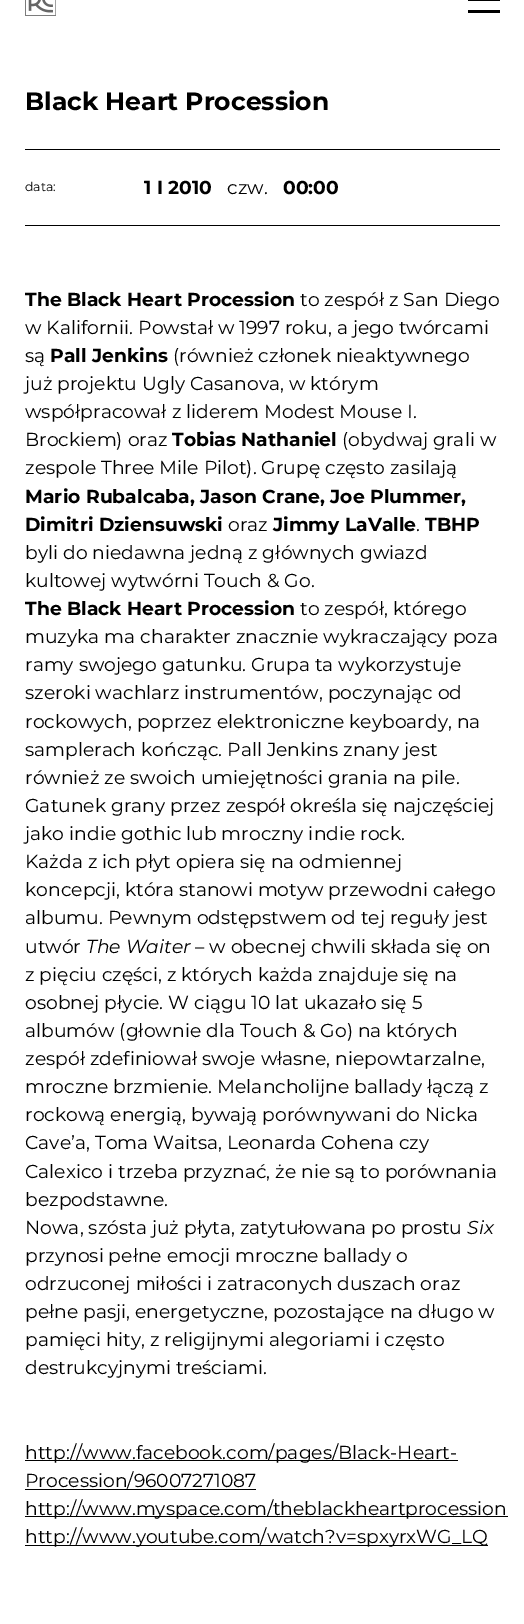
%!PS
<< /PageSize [524 1624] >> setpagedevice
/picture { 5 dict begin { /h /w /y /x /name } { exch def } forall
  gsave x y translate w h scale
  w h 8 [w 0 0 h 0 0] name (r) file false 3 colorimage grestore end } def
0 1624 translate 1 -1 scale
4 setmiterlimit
1 setgray
0 0 524 1624 rectfill
(img1.rgb) 25 0 31 16 picture
0 setgray
468 0 32 1 rectfill
468 10 32 3 rectfill
/Montserrat-Bold [25 0 0 -25 0 0] selectfont
25 110 moveto (Black Heart Procession) show
25 149 475 1 rectfill
25 225 475 1 rectfill
/Montserrat-Regular [12.5 0 0 -12.5 0 0] selectfont
25 191 moveto (data:) show
/Montserrat-Bold [18.75 0 0 -18.75 0 0] selectfont
144 194 moveto (1 I 2010) show
/Montserrat-Regular [18.75 0 0 -18.75 0 0] selectfont
227 194 moveto (czw.) show
/Montserrat-Bold [18.75 0 0 -18.75 0 0] selectfont
283 194 moveto (00:00) show
25 306 moveto (The Black Heart Procession) show
/Montserrat-Regular [18.75 0 0 -18.75 0 0] selectfont
300 306 moveto (to zespół z San Diego) show
25 334 moveto (w Kalifornii. Powstał w 1997 roku, a jego twórcami) show
25 362 moveto (są) show
/Montserrat-Bold [18.75 0 0 -18.75 0 0] selectfont
50 362 moveto (Pall Jenkins) show
/Montserrat-Regular [18.75 0 0 -18.75 0 0] selectfont
173 362 moveto (\(również członek nieaktywnego) show
25 390 moveto (już projektu Ugly Casanova, w którym) show
25 418 moveto (współpracował z liderem Modest Mouse I.) show
25 446 moveto (Brockiem\) oraz) show
/Montserrat-Bold [18.75 0 0 -18.75 0 0] selectfont
172 446 moveto (Tobias Nathaniel) show
/Montserrat-Regular [18.75 0 0 -18.75 0 0] selectfont
342 446 moveto (\(obydwaj grali w) show
25 474 moveto (zespole Three Mile Pilot\). Grupę często zasilają) show
/Montserrat-Bold [18.75 0 0 -18.75 0 0] selectfont
25 503 moveto (Mario Rubalcaba, Jason Crane, Joe Plummer,) show
25 531 moveto (Dimitri Dziensuwski) show
/Montserrat-Regular [18.75 0 0 -18.75 0 0] selectfont
228 531 moveto (oraz) show
/Montserrat-Bold [18.75 0 0 -18.75 0 0] selectfont
273 531 moveto (Jimmy LaValle) show
/Montserrat-Regular [18.75 0 0 -18.75 0 0] selectfont
416 531 moveto (.) show
/Montserrat-Bold [18.75 0 0 -18.75 0 0] selectfont
425 531 moveto (TBHP) show
/Montserrat-Regular [18.75 0 0 -18.75 0 0] selectfont
25 559 moveto (byli do niedawna jedną z głównych gwiazd) show
25 587 moveto (kultowej wytwórni Touch & Go.) show
/Montserrat-Bold [18.75 0 0 -18.75 0 0] selectfont
25 615 moveto (The Black Heart Procession) show
/Montserrat-Regular [18.75 0 0 -18.75 0 0] selectfont
300 615 moveto (to zespół, którego) show
25 643 moveto (muzyka ma charakter znacznie wykraczający poza) show
25 671 moveto (ramy swojego gatunku. Grupa ta wykorzystuje) show
25 699 moveto (szeroki wachlarz instrumentów, poczynając od) show
25 728 moveto (rockowych, poprzez elektroniczne keyboardy, na) show
25 756 moveto (samplerach kończąc. Pall Jenkins znany jest) show
25 784 moveto (również ze swoich umiejętności grania na pile.) show
25 812 moveto (Gatunek grany przez zespół określa się najczęściej) show
25 840 moveto (jako indie gothic lub mroczny indie rock.) show
25 868 moveto (Każda z ich płyt opiera się na odmiennej) show
25 896 moveto (koncepcji, która stanowi motyw przewodni całego) show
25 924 moveto (albumu. Pewnym odstępstwem od tej reguły jest) show
25 953 moveto (utwór) show
/Montserrat-Italic [18.75 0 0 -18.75 0 0] selectfont
86 953 moveto (The Waiter) show
/Montserrat-Regular [18.75 0 0 -18.75 0 0] selectfont
195 953 moveto (– w obecnej chwili składa się on) show
25 981 moveto (z pięciu części, z których każda znajduje się na) show
25 1009 moveto (osobnej płycie. W ciągu 10 lat ukazało się 5) show
25 1037 moveto (albumów \(głownie dla Touch & Go\) na których) show
25 1065 moveto (zespół zdefiniował swoje własne, niepowtarzalne,) show
25 1093 moveto (mroczne brzmienie. Melancholijne ballady łączą z) show
25 1121 moveto (rockową energią, bywają porównywani do Nicka) show
25 1149 moveto (Cave’a, Toma Waitsa, Leonarda Cohena czy) show
25 1178 moveto (Calexico i trzeba przyznać, że nie są to porównania) show
25 1206 moveto (bezpodstawne.) show
25 1234 moveto (Nowa, szósta już płyta, zatytułowana po prostu) show
/Montserrat-Italic [18.75 0 0 -18.75 0 0] selectfont
467 1234 moveto (Six) show
/Montserrat-Regular [18.75 0 0 -18.75 0 0] selectfont
25 1262 moveto (przynosi pełne emocji mroczne ballady o) show
25 1290 moveto (odrzuconej miłości i zatraconych duszach oraz) show
25 1318 moveto (pełne pasji, energetyczne, pozostające na długo w) show
25 1346 moveto (pamięci hity, z religijnymi alegoriami i często) show
25 1374 moveto (destrukcyjnymi treściami.) show
25 1460 433 1 rectfill
25 1459 moveto (http://www.facebook.com/pages/Black-Heart-) show
25 1487 moveto (Procession/96007271087) show
25 1489 231 1 rectfill
25 1516 483 1 rectfill
25 1515 moveto (http://www.myspace.com/theblackheartprocession) show
25 1545 463 1 rectfill
25 1543 moveto (http://www.youtube.com/watch?v=spxyrxWG_LQ) show
showpage
